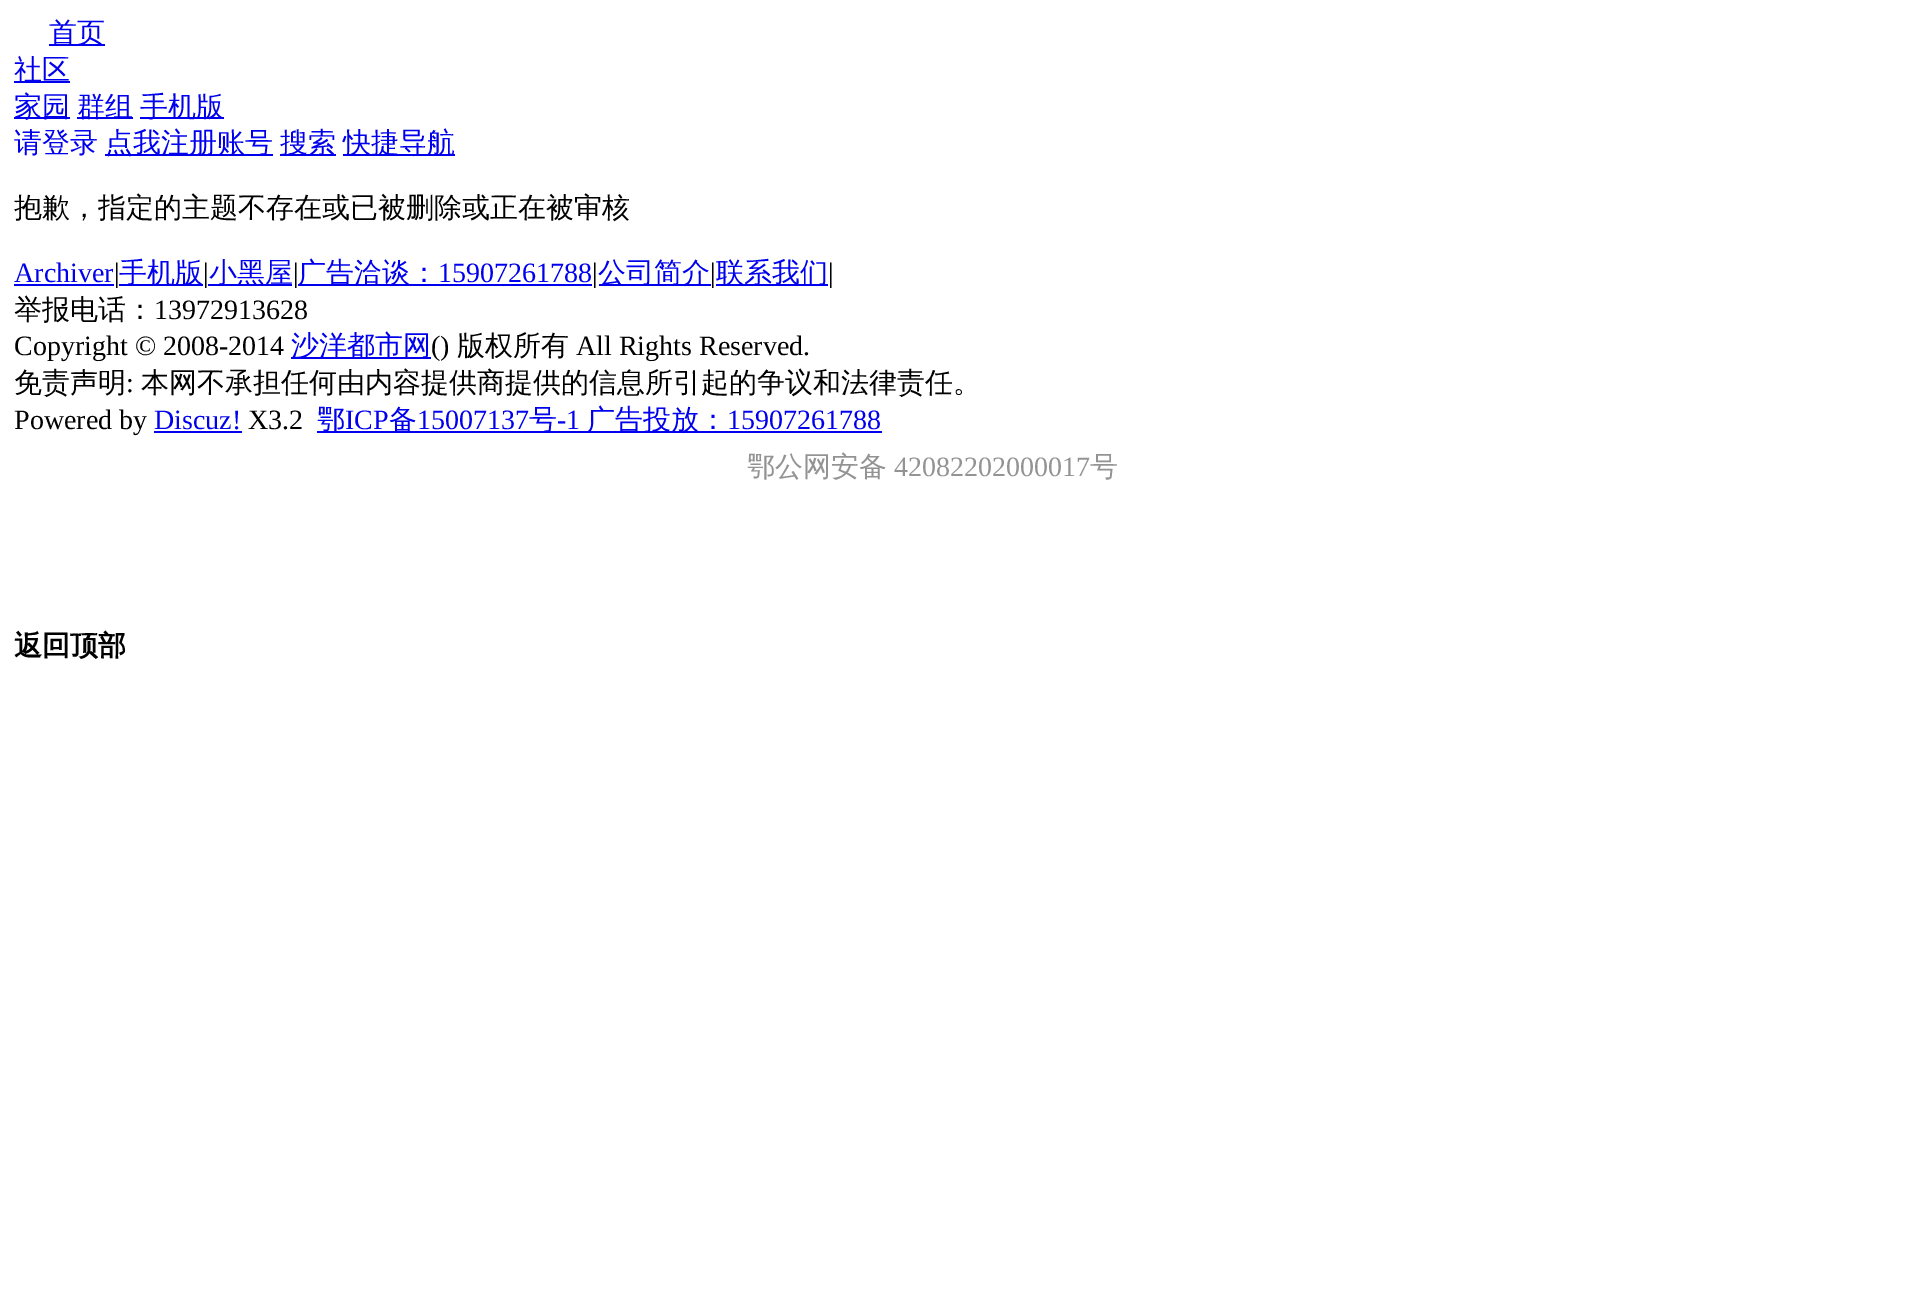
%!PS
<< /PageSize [1917 1313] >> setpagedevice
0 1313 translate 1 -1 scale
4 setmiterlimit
1 setgray
0 0 1917 1313 rectfill
0 0 0.933 setrgbcolor
49 44 56 2 rectfill
/WenQuanYiZenHei-Medium [28 0 0 -28 0 0] selectfont
49 42 moveto (首页) show
14 81 56 2 rectfill
14 79 moveto (社区) show
14 117 56 2 rectfill
14 116 moveto (家园) show
77 117 56 2 rectfill
77 116 moveto (群组) show
140 117 84 2 rectfill
140 116 moveto (手机版) show
14 152 moveto (请登录) show
105 154 168 2 rectfill
105 152 moveto (点我注册账号) show
280 154 56 2 rectfill
280 152 moveto (搜索) show
343 154 112 2 rectfill
343 152 moveto (快捷导航) show
0 setgray
14 217 moveto (抱歉，指定的主题不存在或已被删除或正在被审核) show
/LiberationSerif-Regular [28 0 0 -28 0 0] selectfont
0 0 0.933 setrgbcolor
14 282 moveto (Archiver) show
14 284 100 2 rectfill
0 setgray
114 282 moveto (|) show
0 0 0.933 setrgbcolor
119 284 84 2 rectfill
/WenQuanYiZenHei-Medium [28 0 0 -28 0 0] selectfont
119 282 moveto (手机版) show
/LiberationSerif-Regular [28 0 0 -28 0 0] selectfont
0 setgray
203 282 moveto (|) show
0 0 0.933 setrgbcolor
208 284 84 2 rectfill
/WenQuanYiZenHei-Medium [28 0 0 -28 0 0] selectfont
209 282 moveto (小黑屋) show
/LiberationSerif-Regular [28 0 0 -28 0 0] selectfont
0 setgray
293 282 moveto (|) show
0 0 0.933 setrgbcolor
298 284 294 2 rectfill
/WenQuanYiZenHei-Medium [28 0 0 -28 0 0] selectfont
298 282 moveto (广告洽谈：) show
/LiberationSerif-Regular [28 0 0 -28 0 0] selectfont
438 282 moveto (15907261788) show
0 setgray
592 282 moveto (|) show
0 0 0.933 setrgbcolor
599 284 112 2 rectfill
/WenQuanYiZenHei-Medium [28 0 0 -28 0 0] selectfont
598 282 moveto (公司简介) show
/LiberationSerif-Regular [28 0 0 -28 0 0] selectfont
0 setgray
710 282 moveto (|) show
0 0 0.933 setrgbcolor
716 284 112 2 rectfill
/WenQuanYiZenHei-Medium [28 0 0 -28 0 0] selectfont
716 282 moveto (联系我们) show
/LiberationSerif-Regular [28 0 0 -28 0 0] selectfont
0 setgray
828 282 moveto (|) show
/WenQuanYiZenHei-Medium [28 0 0 -28 0 0] selectfont
14 319 moveto (举报电话：) show
/LiberationSerif-Regular [28 0 0 -28 0 0] selectfont
154 319 moveto (13972913628) show
14 355 moveto (Copyright © 2008-2014) show
0 0 0.933 setrgbcolor
291 357 140 2 rectfill
/WenQuanYiZenHei-Medium [28 0 0 -28 0 0] selectfont
291 355 moveto (沙洋都市网) show
/LiberationSerif-Regular [28 0 0 -28 0 0] selectfont
0 setgray
431 355 moveto (\(\)) show
/WenQuanYiZenHei-Medium [28 0 0 -28 0 0] selectfont
457 355 moveto (版权所有) show
/LiberationSerif-Regular [28 0 0 -28 0 0] selectfont
576 355 moveto (All Rights Reserved.) show
/WenQuanYiZenHei-Medium [28 0 0 -28 0 0] selectfont
14 392 moveto (免责声明) show
/LiberationSerif-Regular [28 0 0 -28 0 0] selectfont
126 392 moveto (:) show
/WenQuanYiZenHei-Medium [28 0 0 -28 0 0] selectfont
141 392 moveto (本网不承担任何由内容提供商提供的信息所引起的争议和法律责任。) show
/LiberationSerif-Regular [28 0 0 -28 0 0] selectfont
14 429 moveto (Powered by) show
0 0 0.933 setrgbcolor
154 429 moveto (Discuz!) show
154 431 88 2 rectfill
0 setgray
248 429 moveto (X3.2) show
0 0 0.933 setrgbcolor
317 431 565 2 rectfill
/WenQuanYiZenHei-Medium [28 0 0 -28 0 0] selectfont
317 429 moveto (鄂) show
/LiberationSerif-Regular [28 0 0 -28 0 0] selectfont
345 429 moveto (ICP) show
/WenQuanYiZenHei-Medium [28 0 0 -28 0 0] selectfont
389 429 moveto (备) show
/LiberationSerif-Regular [28 0 0 -28 0 0] selectfont
417 429 moveto (15007137) show
/WenQuanYiZenHei-Medium [28 0 0 -28 0 0] selectfont
529 429 moveto (号) show
/LiberationSerif-Regular [28 0 0 -28 0 0] selectfont
557 429 moveto (-1) show
/WenQuanYiZenHei-Medium [28 0 0 -28 0 0] selectfont
587 429 moveto (广告投放：) show
/LiberationSerif-Regular [28 0 0 -28 0 0] selectfont
727 429 moveto (15907261788) show
/WenQuanYiZenHei-Medium [28 0 0 -28 0 0] selectfont
0.576 setgray
747 476 moveto (鄂公网安备) show
/LiberationSerif-Regular [28 0 0 -28 0 0] selectfont
894 476 moveto (42082202000017) show
/WenQuanYiZenHei-Medium [28 0 0 -28 0 0] selectfont
1090 476 moveto (号) show
/WenQuanYiZenHei-Bold [28 0 0 -28 0 0] selectfont
0 setgray
14 655 moveto (返回顶部) show
showpage
